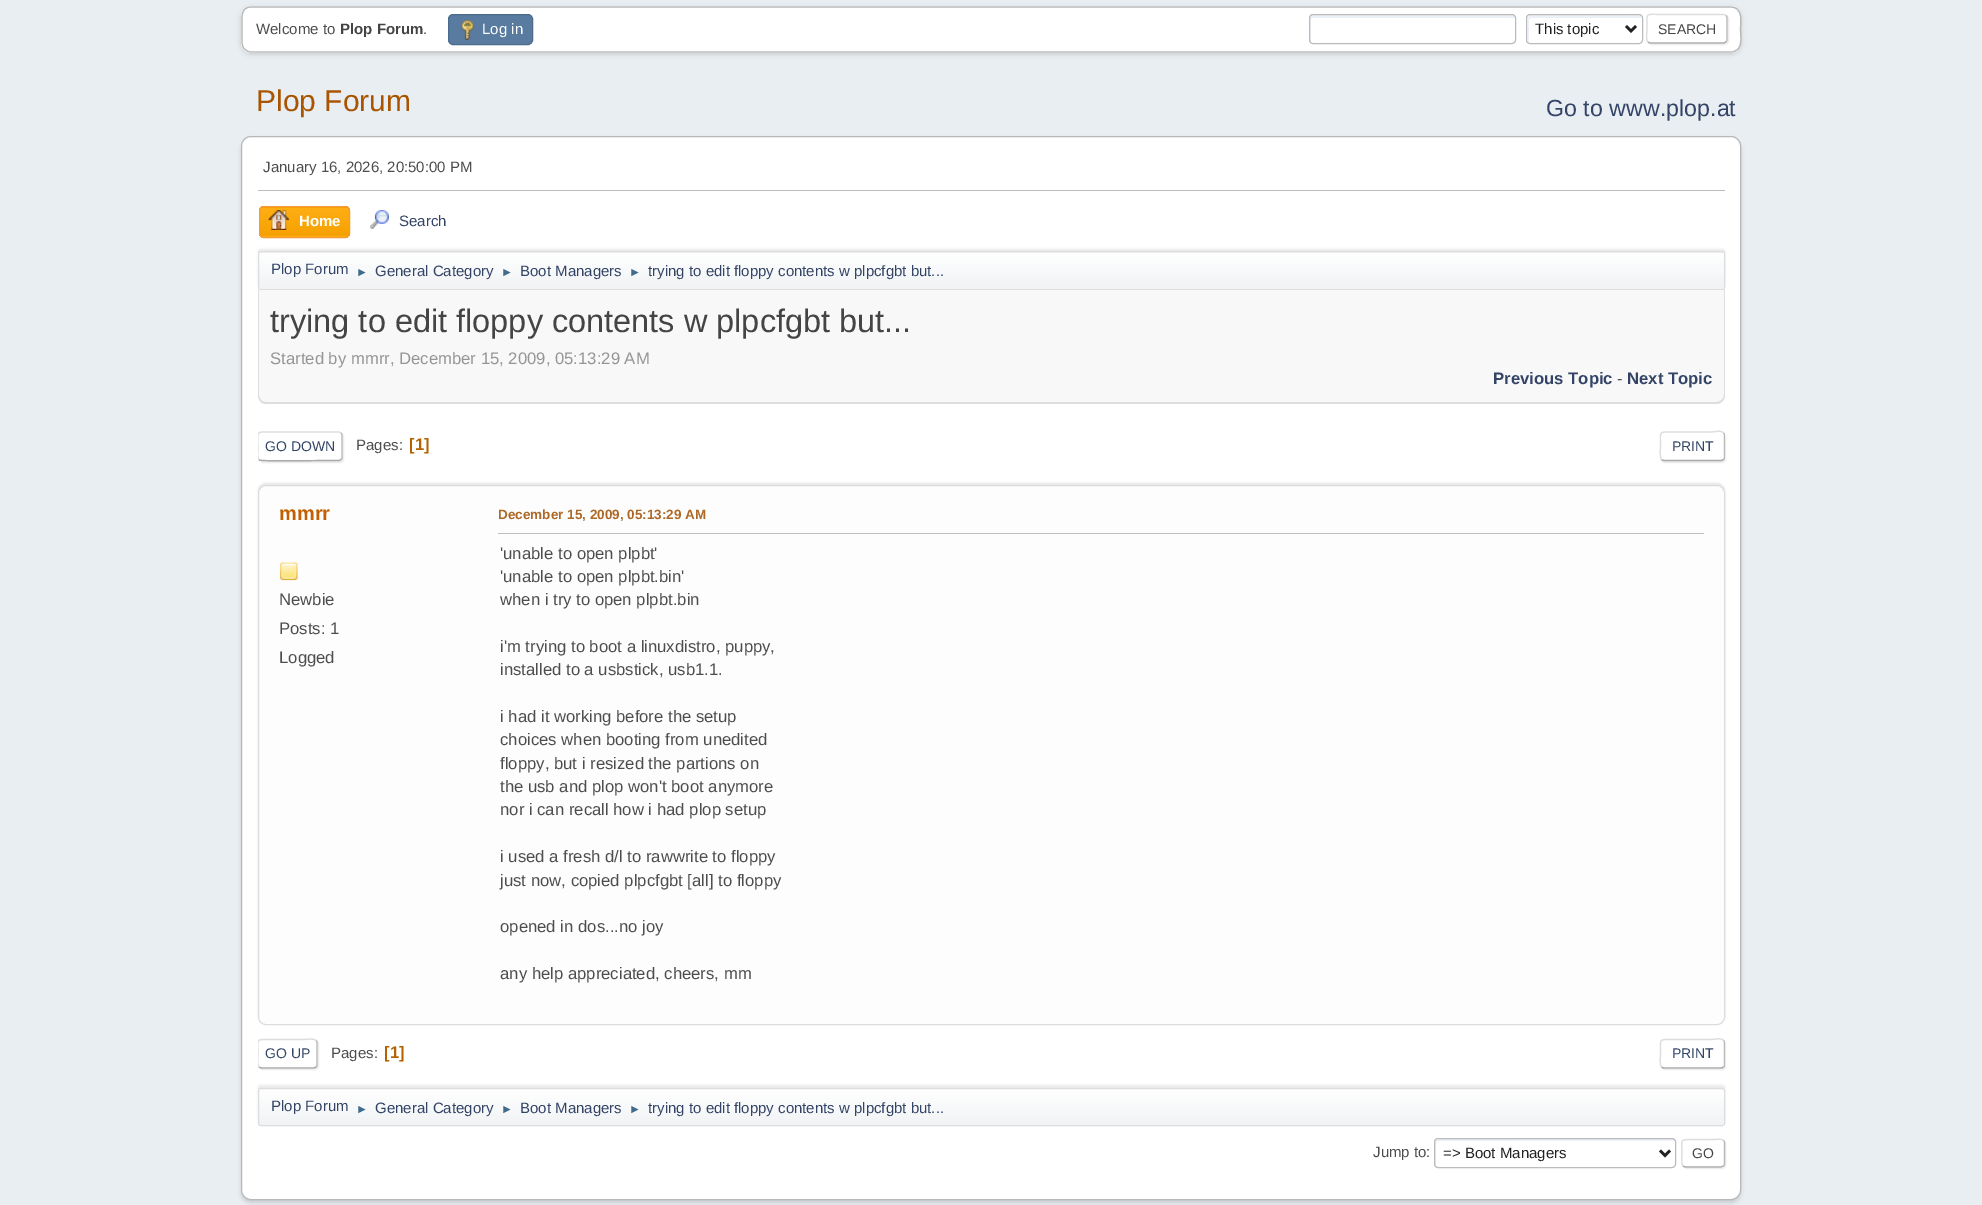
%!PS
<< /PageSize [1982 1205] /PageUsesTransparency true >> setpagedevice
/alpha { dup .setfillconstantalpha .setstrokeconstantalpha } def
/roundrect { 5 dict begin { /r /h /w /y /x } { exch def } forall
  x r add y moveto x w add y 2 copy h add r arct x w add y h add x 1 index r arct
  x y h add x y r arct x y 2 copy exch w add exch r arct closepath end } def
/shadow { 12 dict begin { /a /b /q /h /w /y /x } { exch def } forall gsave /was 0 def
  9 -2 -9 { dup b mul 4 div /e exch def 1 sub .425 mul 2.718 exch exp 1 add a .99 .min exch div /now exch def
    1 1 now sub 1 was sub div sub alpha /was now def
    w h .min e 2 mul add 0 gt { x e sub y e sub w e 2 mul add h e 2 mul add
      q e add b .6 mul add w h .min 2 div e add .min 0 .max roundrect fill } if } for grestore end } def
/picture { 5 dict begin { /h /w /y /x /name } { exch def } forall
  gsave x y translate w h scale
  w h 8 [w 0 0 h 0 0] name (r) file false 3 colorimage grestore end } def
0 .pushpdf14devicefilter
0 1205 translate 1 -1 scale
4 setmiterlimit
0.914 0.933 0.949 setrgbcolor
0 0 1982 1205 rectfill
0 setgray
241 8 1500 46 10 2.5 0.16 shadow
1 setgray
241 6 1500 47 10 roundrect fill
0.733 setgray
1.2 setlinewidth
newpath 1738 49 moveto 1736 51 1733.5 52 1731 52 curveto 251 52 lineto 249 52 246.5 51 244.5 49 curveto stroke
0.722 setgray
newpath 244.5 49 moveto 241.5 46 242 42 242 38 curveto 242 25 lineto 242 18 240.5 7 251 7 curveto 1731 7 lineto 1734 7.5 lineto 1743 10 1740.5 22.5 1740.5 29.5 curveto 1740.5 35 1742.5 44.5 1738 49 curveto stroke
/LiberationSans-Regular [15 0 0 -15 0 0] selectfont
0.302 setgray
256 34 moveto (Welcome to) show
/LiberationSans-Bold [15 0 0 -15 0 0] selectfont
0.267 setgray
340 34 moveto (Plop Forum) show
/LiberationSans-Regular [15 0 0 -15 0 0] selectfont
0.302 setgray
423 34 moveto (.) show
0.349 0.482 0.624 setrgbcolor
448.5 14.5 84 30 4.5 roundrect gsave fill grestore
0.29 0.42 0.549 setrgbcolor
1 setlinewidth
stroke
(img1.rgb) 461 20 13 20 picture
1 setgray
482 34 moveto (Log in) show
0.925 0.945 0.973 setrgbcolor
newpath 1314 18 moveto 1515 18 lineto 1515 17 1514 15 1512 15 curveto 1312 15 lineto 1309 15 1310 19 1310 21 curveto 1310 29 lineto 1310 31 1309 41 1311 43 curveto 1311 24 lineto 1311 21 1310 18 1314 18 curveto closepath fill
0.733 setgray
1309.5 14.5 206 29 3.5 roundrect stroke
0.925 0.945 0.973 setrgbcolor
newpath 1531 18 moveto 1641 18 lineto 1641 11 1627 15 1620 15 curveto 1548 15 lineto 1526 15 1528 10 1528 29 curveto 1528 31 1527 41 1529 43 curveto 1529 24 lineto 1529 22 1528 18 1531 18 curveto closepath fill
0.733 setgray
1526.5 14.5 116 29 3.5 roundrect stroke
0.133 setgray
2.5 setlinewidth
newpath 1626 26 moveto 1631 31 lineto 1636 26 lineto stroke
1535 34 moveto (This topic) show
0.867 setgray
1648 15 81 30 4 0.5 0.57 shadow
1 setgray
1646 14 82 30 4 roundrect fill
0.733 setgray
1.2 setlinewidth
newpath 1726 15.5 moveto 1726.5 16 1727 16.5 1727 17.5 curveto 1727 40 lineto 1727 41 1726.5 41.5 1726 42 curveto stroke
0.667 setgray
newpath 1726 42 moveto 1724 43 lineto 1649.5 43 lineto 1648 42 lineto stroke
0.867 setgray
newpath 1648 42 moveto 1645.5 40 1647 31.5 1647 29 curveto 1647 11.5 1644.5 14.5 1662.5 14.5 curveto 1724 14.5 lineto 1726 15.5 lineto stroke
/LiberationSans-Regular [14 0 0 -14 0 0] selectfont
0.267 setgray
1658 34 moveto (SEARCH) show
/LiberationSans-Regular [30 0 0 -30 0 0] selectfont
0.659 0.329 0 setrgbcolor
256 111 moveto (Plop Forum) show
/LiberationSans-Regular [23.25 0 0 -23.25 0 0] selectfont
0.2 0.267 0.4 setrgbcolor
1546 116 moveto (Go to www.plop.at) show
0 setgray
241 139 1500 1064 10 2 0.14 shadow
1 setgray
241.5 136.5 1499 1063 9.5 roundrect gsave fill grestore
0.722 setgray
1 setlinewidth
stroke
0.733 setgray
258 190 1467 1 rectfill
/LiberationSans-Regular [15 0 0 -15 0 0] selectfont
0.302 setgray
263 172 moveto (January 16, 2026, 20:50:00 PM) show
gsave
259 206 91 32 5 roundrect clip newpath
gsave newpath 259 206 moveto 350 206 lineto 350 208 lineto 259 208 lineto closepath clip newpath
<< /ShadingType 2 /ColorSpace /DeviceRGB /Coords [304 179 304 208] /Extend [true true] /Function << /FunctionType 2 /Domain [0 1] /C0 [1 0.682 0.078] /C1 [0.961 0.631 0] /N 1 >> >> shfill grestore
gsave newpath 259 208 moveto 350 208 lineto 350 236 lineto 259 236 lineto closepath clip newpath
<< /ShadingType 2 /ColorSpace /DeviceRGB /Coords [304 208 304 236] /Extend [true true] /Function << /FunctionType 2 /Domain [0 1] /C0 [1 0.682 0.078] /C1 [0.961 0.631 0] /N 1 >> >> shfill grestore
gsave newpath 259 236 moveto 350 236 lineto 350 238 lineto 259 238 lineto closepath clip newpath
<< /ShadingType 2 /ColorSpace /DeviceRGB /Coords [304 236 304 265] /Extend [true true] /Function << /FunctionType 2 /Domain [0 1] /C0 [1 0.682 0.078] /C1 [0.961 0.631 0] /N 1 >> >> shfill grestore
grestore
0.957 0.604 0.227 setrgbcolor
259.5 206.5 90 31 4.5 roundrect stroke
(img2.rgb) 268 210 21 20 picture
/LiberationSans-Bold [15 0 0 -15 0 0] selectfont
1 setgray
299 226 moveto (Home) show
(img3.rgb) 369 210 20 19 picture
/LiberationSans-Regular [15 0 0 -15 0 0] selectfont
0.2 0.267 0.4 setrgbcolor
399 226 moveto (Search) show
0 setgray
258 249 1467 39 2.5 1 0.08 shadow
gsave
258 251 1467 39 2.5 roundrect clip newpath
gsave newpath 258 251 moveto 1725 251 lineto 1725 253 lineto 258 253 lineto closepath clip newpath
<< /ShadingType 2 /ColorSpace /DeviceRGB /Coords [991 216 991 253] /Extend [true true] /Function << /FunctionType 3 /Domain [0 1] /Functions [<< /FunctionType 2 /Domain [0 1] /C0 [1 1 1] /C1 [0.945 0.953 0.961] /N 1 >> << /FunctionType 2 /Domain [0 1] /C0 [0.945 0.953 0.961] /C1 [0.945 0.953 0.961] /N 1 >>] /Bounds [0.95] /Encode [0 1 0 1] >> >> shfill grestore
grestore
gsave newpath 258 253 moveto 1725 253 lineto 1725 289 lineto 258 289 lineto closepath clip newpath
<< /ShadingType 2 /ColorSpace /DeviceRGB /Coords [991 252 991 289] /Extend [true true] /Function << /FunctionType 3 /Domain [0 1] /Functions [<< /FunctionType 2 /Domain [0 1] /C0 [1 1 1] /C1 [0.945 0.953 0.961] /N 1 >> << /FunctionType 2 /Domain [0 1] /C0 [0.945 0.953 0.961] /C1 [0.945 0.953 0.961] /N 1 >>] /Bounds [0.95] /Encode [0 1 0 1] >> >> shfill grestore
0.867 setgray
258.5 251.5 1466 38 2 roundrect stroke
0.2 0.267 0.4 setrgbcolor
271 274 moveto (Plop Forum) show
/LiberationSans-Regular [12 0 0 -12 0 0] selectfont
0.247 0.42 0.549 setrgbcolor
356 276 moveto (►) show
/LiberationSans-Regular [15 0 0 -15 0 0] selectfont
0.2 0.267 0.4 setrgbcolor
375 276 moveto (General Category) show
/LiberationSans-Regular [12 0 0 -12 0 0] selectfont
0.247 0.42 0.549 setrgbcolor
501 276 moveto (►) show
/LiberationSans-Regular [15 0 0 -15 0 0] selectfont
0.2 0.267 0.4 setrgbcolor
520 276 moveto (Boot Managers) show
/LiberationSans-Regular [12 0 0 -12 0 0] selectfont
0.247 0.42 0.549 setrgbcolor
629 276 moveto (►) show
/LiberationSans-Regular [15 0 0 -15 0 0] selectfont
0.2 0.267 0.4 setrgbcolor
648 276 moveto (trying to edit floppy contents w plpcfgbt but...) show
0.973 setgray
newpath 258 290 moveto 1725 290 lineto 1725 395 lineto 1725 400 1721 404 1716 404 curveto 267 404 lineto 262 404 258 400 258 395 curveto closepath fill
0.867 setgray
newpath 258 290 moveto 1725 290 lineto 1725 395 lineto 1725 400 1721 404 1716 404 curveto 266 404 lineto 261 404 258 400 258 395 curveto closepath 259 290 moveto 1724 290 lineto 1724 395 lineto 1724 399 1720 402 1716 402 curveto 266 402 lineto 262 402 259 399 259 395 curveto closepath eofill
/LiberationSans-Regular [32.5 0 0 -32.5 0 0] selectfont
0.267 setgray
270 332 moveto (trying to edit floppy contents w plpcfgbt but...) show
/LiberationSans-Regular [16.7 0 0 -16.7 0 0] selectfont
0.584 setgray
270 364 moveto (Started by mmrr, December 15, 2009, 05:13:29 AM) show
/LiberationSans-Bold [16.7 0 0 -16.7 0 0] selectfont
0.2 0.267 0.4 setrgbcolor
1493 384 moveto (Previous Topic) show
/LiberationSans-Regular [16.7 0 0 -16.7 0 0] selectfont
0.302 setgray
1617 384 moveto (-) show
/LiberationSans-Bold [16.7 0 0 -16.7 0 0] selectfont
0.2 0.267 0.4 setrgbcolor
1627 384 moveto (Next Topic) show
gsave
newpath 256 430 moveto 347 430 lineto 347 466 lineto 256 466 lineto closepath 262 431 moveto 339 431 lineto 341 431 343 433 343 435 curveto 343 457 lineto 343 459 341 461 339 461 curveto 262 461 lineto 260 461 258 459 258 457 curveto 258 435 lineto 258 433 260 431 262 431 curveto closepath eoclip newpath
0.867 setgray
259 433 85 30 4 0.5 0.57 shadow
grestore
0.733 setgray
1.2 setlinewidth
newpath 341 433 moveto 341.5 433.5 342 434 342 435 curveto 342 457.5 lineto 342 458.5 341.5 459 341 459.5 curveto stroke
0.667 setgray
newpath 341 459.5 moveto 339 460.5 lineto 326 460.5 lineto 318.5 460.5 261.5 461.5 259.5 460 curveto 259 459.5 lineto stroke
gsave
258 423 1467 47 rectclip
0.867 setgray
newpath 259 459.5 moveto 257 457.5 258 452.5 258 450 curveto 258 429.5 254 432 274 432 curveto 339 432 lineto 341 433 lineto stroke
grestore
/LiberationSans-Regular [14 0 0 -14 0 0] selectfont
0.2 0.267 0.4 setrgbcolor
265 451 moveto (GO DOWN) show
/LiberationSans-Regular [15 0 0 -15 0 0] selectfont
0.302 setgray
356 450 moveto (Pages:) show
/LiberationSans-Bold [16.7 0 0 -16.7 0 0] selectfont
0.706 0.38 0 setrgbcolor
409 450 moveto ([1]) show
gsave
newpath 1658 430 moveto 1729 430 lineto 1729 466 lineto 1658 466 lineto closepath 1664 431 moveto 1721 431 lineto 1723 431 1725 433 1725 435 curveto 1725 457 lineto 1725 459 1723 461 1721 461 curveto 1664 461 lineto 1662 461 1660 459 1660 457 curveto 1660 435 lineto 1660 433 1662 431 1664 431 curveto closepath eoclip newpath
0.867 setgray
1661 433 65 30 4 0.5 0.57 shadow
grestore
gsave
258 423 1467 47 rectclip
0.733 setgray
newpath 1723.5 433 moveto 1724 433.5 1724.5 434 1724.5 435 curveto 1724.5 457.5 lineto 1724.5 458.5 1724 459 1723.5 459.5 curveto stroke
grestore
0.667 setgray
newpath 1723.5 459.5 moveto 1721.5 460.5 lineto 1663.5 460.5 lineto 1661.5 459.5 lineto stroke
0.867 setgray
newpath 1661.5 459.5 moveto 1659.5 457.5 1660.5 449 1660.5 446 curveto 1660.5 430.5 1658 432 1673.5 432 curveto 1711.5 432 lineto 1715.5 432 1720 430 1723 432.5 curveto 1723.5 433 lineto stroke
/LiberationSans-Regular [14 0 0 -14 0 0] selectfont
0.2 0.267 0.4 setrgbcolor
1672 451 moveto (PRINT) show
0 setgray
258 483 1467 540 8 1 0.1 shadow
0.992 setgray
258.5 485.5 1466 539 7.5 roundrect gsave fill grestore
0.867 setgray
1 setlinewidth
stroke
/LiberationSans-Bold [20 0 0 -20 0 0] selectfont
0.753 0.376 0.008 setrgbcolor
279 520 moveto (mmrr) show
(img4.rgb) 279 562 19 19 picture
/LiberationSans-Regular [16.7 0 0 -16.7 0 0] selectfont
0.302 setgray
279 605 moveto (Newbie) show
279 634 moveto (Posts: 1) show
279 663 moveto (Logged) show
/LiberationSans-Bold [13.5 0 0 -13.5 0 0] selectfont
0.678 0.408 0.145 setrgbcolor
498 519 moveto (December 15, 2009, 05:13:29 AM) show
0.749 setgray
498 533 1206 1 rectfill
/LiberationSans-Regular [16.7 0 0 -16.7 0 0] selectfont
0.302 setgray
500 559 moveto ('unable to open plpbt') show
500 582 moveto ('unable to open plpbt.bin') show
500 605 moveto (when i try to open plpbt.bin) show
500 652 moveto (i'm trying to boot a linuxdistro, puppy,) show
500 675 moveto (installed to a usbstick, usb1.1.) show
500 722 moveto (i had it working before the setup) show
500 745 moveto (choices when booting from unedited) show
500 769 moveto (floppy, but i resized the partions on) show
500 792 moveto (the usb and plop won't boot anymore) show
500 815 moveto (nor i can recall how i had plop setup) show
500 862 moveto (i used a fresh d/l to rawwrite to floppy) show
500 886 moveto (just now, copied plpcfgbt [all] to floppy) show
500 932 moveto (opened in dos...no joy) show
500 979 moveto (any help appreciated, cheers, mm) show
gsave
newpath 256 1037 moveto 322 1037 lineto 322 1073 lineto 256 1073 lineto closepath 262 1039 moveto 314 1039 lineto 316 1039 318 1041 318 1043 curveto 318 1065 lineto 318 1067 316 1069 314 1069 curveto 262 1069 lineto 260 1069 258 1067 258 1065 curveto 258 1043 lineto 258 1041 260 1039 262 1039 curveto closepath eoclip newpath
0.867 setgray
259 1040 60 30 4 0.5 0.57 shadow
grestore
0.733 setgray
1.2 setlinewidth
newpath 316 1040.5 moveto 316.5 1041 317 1041.5 317 1042.5 curveto 317 1065 lineto 317 1066 316.5 1066.5 316 1067 curveto stroke
0.667 setgray
newpath 316 1067 moveto 314 1068 lineto 261 1068 lineto 259 1067 lineto stroke
gsave
258 1030 1467 48 rectclip
0.867 setgray
newpath 259 1067 moveto 257 1065 258 1056.5 258 1054 curveto 258 1038.5 255 1039.5 270 1039.5 curveto 305 1039.5 lineto 305 1039.5 313.5 1038 316 1040.5 curveto stroke
grestore
/LiberationSans-Regular [14 0 0 -14 0 0] selectfont
0.2 0.267 0.4 setrgbcolor
265 1058 moveto (GO UP) show
/LiberationSans-Regular [15 0 0 -15 0 0] selectfont
0.302 setgray
331 1058 moveto (Pages:) show
/LiberationSans-Bold [16.7 0 0 -16.7 0 0] selectfont
0.706 0.38 0 setrgbcolor
384 1058 moveto ([1]) show
gsave
newpath 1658 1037 moveto 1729 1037 lineto 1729 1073 lineto 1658 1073 lineto closepath 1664 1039 moveto 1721 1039 lineto 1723 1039 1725 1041 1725 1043 curveto 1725 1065 lineto 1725 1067 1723 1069 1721 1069 curveto 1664 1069 lineto 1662 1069 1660 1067 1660 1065 curveto 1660 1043 lineto 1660 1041 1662 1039 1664 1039 curveto closepath eoclip newpath
0.867 setgray
1661 1040 65 30 4 0.5 0.57 shadow
grestore
gsave
258 1030 1467 48 rectclip
0.733 setgray
newpath 1723.5 1040.5 moveto 1724 1041 1724.5 1041.5 1724.5 1042.5 curveto 1724.5 1065 lineto 1724.5 1066 1724 1066.5 1723.5 1067 curveto stroke
grestore
0.667 setgray
newpath 1723.5 1067 moveto 1721.5 1068 lineto 1663.5 1068 lineto 1661.5 1067 lineto stroke
0.867 setgray
newpath 1661.5 1067 moveto 1659.5 1065 1660.5 1056.5 1660.5 1054 curveto 1660.5 1038 1658 1039.5 1673.5 1039.5 curveto 1711.5 1039.5 lineto 1715.5 1039.5 1720 1037.5 1723 1040 curveto 1723.5 1040.5 lineto stroke
/LiberationSans-Regular [14 0 0 -14 0 0] selectfont
0.2 0.267 0.4 setrgbcolor
1672 1058 moveto (PRINT) show
0 setgray
258 1085 1467 39 2.5 1 0.08 shadow
gsave
258 1088 1467 38 2.5 roundrect clip newpath
gsave newpath 258 1089 moveto 1725 1089 lineto 1725 1125 lineto 258 1125 lineto closepath clip newpath
<< /ShadingType 2 /ColorSpace /DeviceRGB /Coords [991 1089 991 1125] /Extend [true true] /Function << /FunctionType 3 /Domain [0 1] /Functions [<< /FunctionType 2 /Domain [0 1] /C0 [1 1 1] /C1 [0.945 0.953 0.961] /N 1 >> << /FunctionType 2 /Domain [0 1] /C0 [0.945 0.953 0.961] /C1 [0.945 0.953 0.961] /N 1 >>] /Bounds [0.95] /Encode [0 1 0 1] >> >> shfill grestore
grestore
0.867 setgray
1 setlinewidth
258.5 1088.5 1466 37 2 roundrect stroke
/LiberationSans-Regular [15 0 0 -15 0 0] selectfont
0.2 0.267 0.4 setrgbcolor
271 1111 moveto (Plop Forum) show
/LiberationSans-Regular [12 0 0 -12 0 0] selectfont
0.247 0.42 0.549 setrgbcolor
356 1113 moveto (►) show
/LiberationSans-Regular [15 0 0 -15 0 0] selectfont
0.2 0.267 0.4 setrgbcolor
375 1113 moveto (General Category) show
/LiberationSans-Regular [12 0 0 -12 0 0] selectfont
0.247 0.42 0.549 setrgbcolor
501 1113 moveto (►) show
/LiberationSans-Regular [15 0 0 -15 0 0] selectfont
0.2 0.267 0.4 setrgbcolor
520 1113 moveto (Boot Managers) show
/LiberationSans-Regular [12 0 0 -12 0 0] selectfont
0.247 0.42 0.549 setrgbcolor
629 1113 moveto (►) show
/LiberationSans-Regular [15 0 0 -15 0 0] selectfont
0.2 0.267 0.4 setrgbcolor
648 1113 moveto (trying to edit floppy contents w plpcfgbt but...) show
0.302 setgray
1373 1157 moveto (Jump to:) show
0.925 0.945 0.973 setrgbcolor
newpath 1439 1141 moveto 1460 1141 1674 1140 1675 1141 curveto 1675 1140 1674 1139 1672 1139 curveto 1438 1139 lineto 1436 1139 1435 1140 1435 1142 curveto 1435 1164 lineto 1435 1164 1435 1165 1436 1166 curveto 1436 1144 lineto 1436 1142 1437 1141 1439 1141 curveto closepath fill
0.733 setgray
1434.5 1138.5 241 29 3.5 roundrect stroke
0.133 setgray
2.5 setlinewidth
newpath 1660 1150.5 moveto 1665 1155.5 lineto 1670 1150.5 lineto stroke
1443 1158 moveto (=> Boot Managers) show
0.867 setgray
1683 1140 43 29 4 0.5 0.57 shadow
1 setgray
1681 1139 44 29 4 roundrect fill
0.733 setgray
1.2 setlinewidth
newpath 1723.5 1140.5 moveto 1724 1141 1724.5 1141.5 1724.5 1142.5 curveto 1724.5 1164 lineto 1724.5 1164.5 1724 1165.5 1723.5 1166 curveto stroke
0.667 setgray
newpath 1723.5 1166 moveto 1721 1167 lineto 1685 1167 lineto 1683 1166 lineto stroke
0.867 setgray
newpath 1683 1166 moveto 1681 1164 1682 1155.5 1682 1153 curveto 1682 1140.5 1679 1139.5 1691 1139.5 curveto 1715 1139.5 lineto 1716.5 1139.5 1721.5 1138.5 1723.5 1140.5 curveto stroke
/LiberationSans-Regular [14 0 0 -14 0 0] selectfont
0.267 setgray
1692 1158 moveto (GO) show
.poppdf14devicefilter showpage
